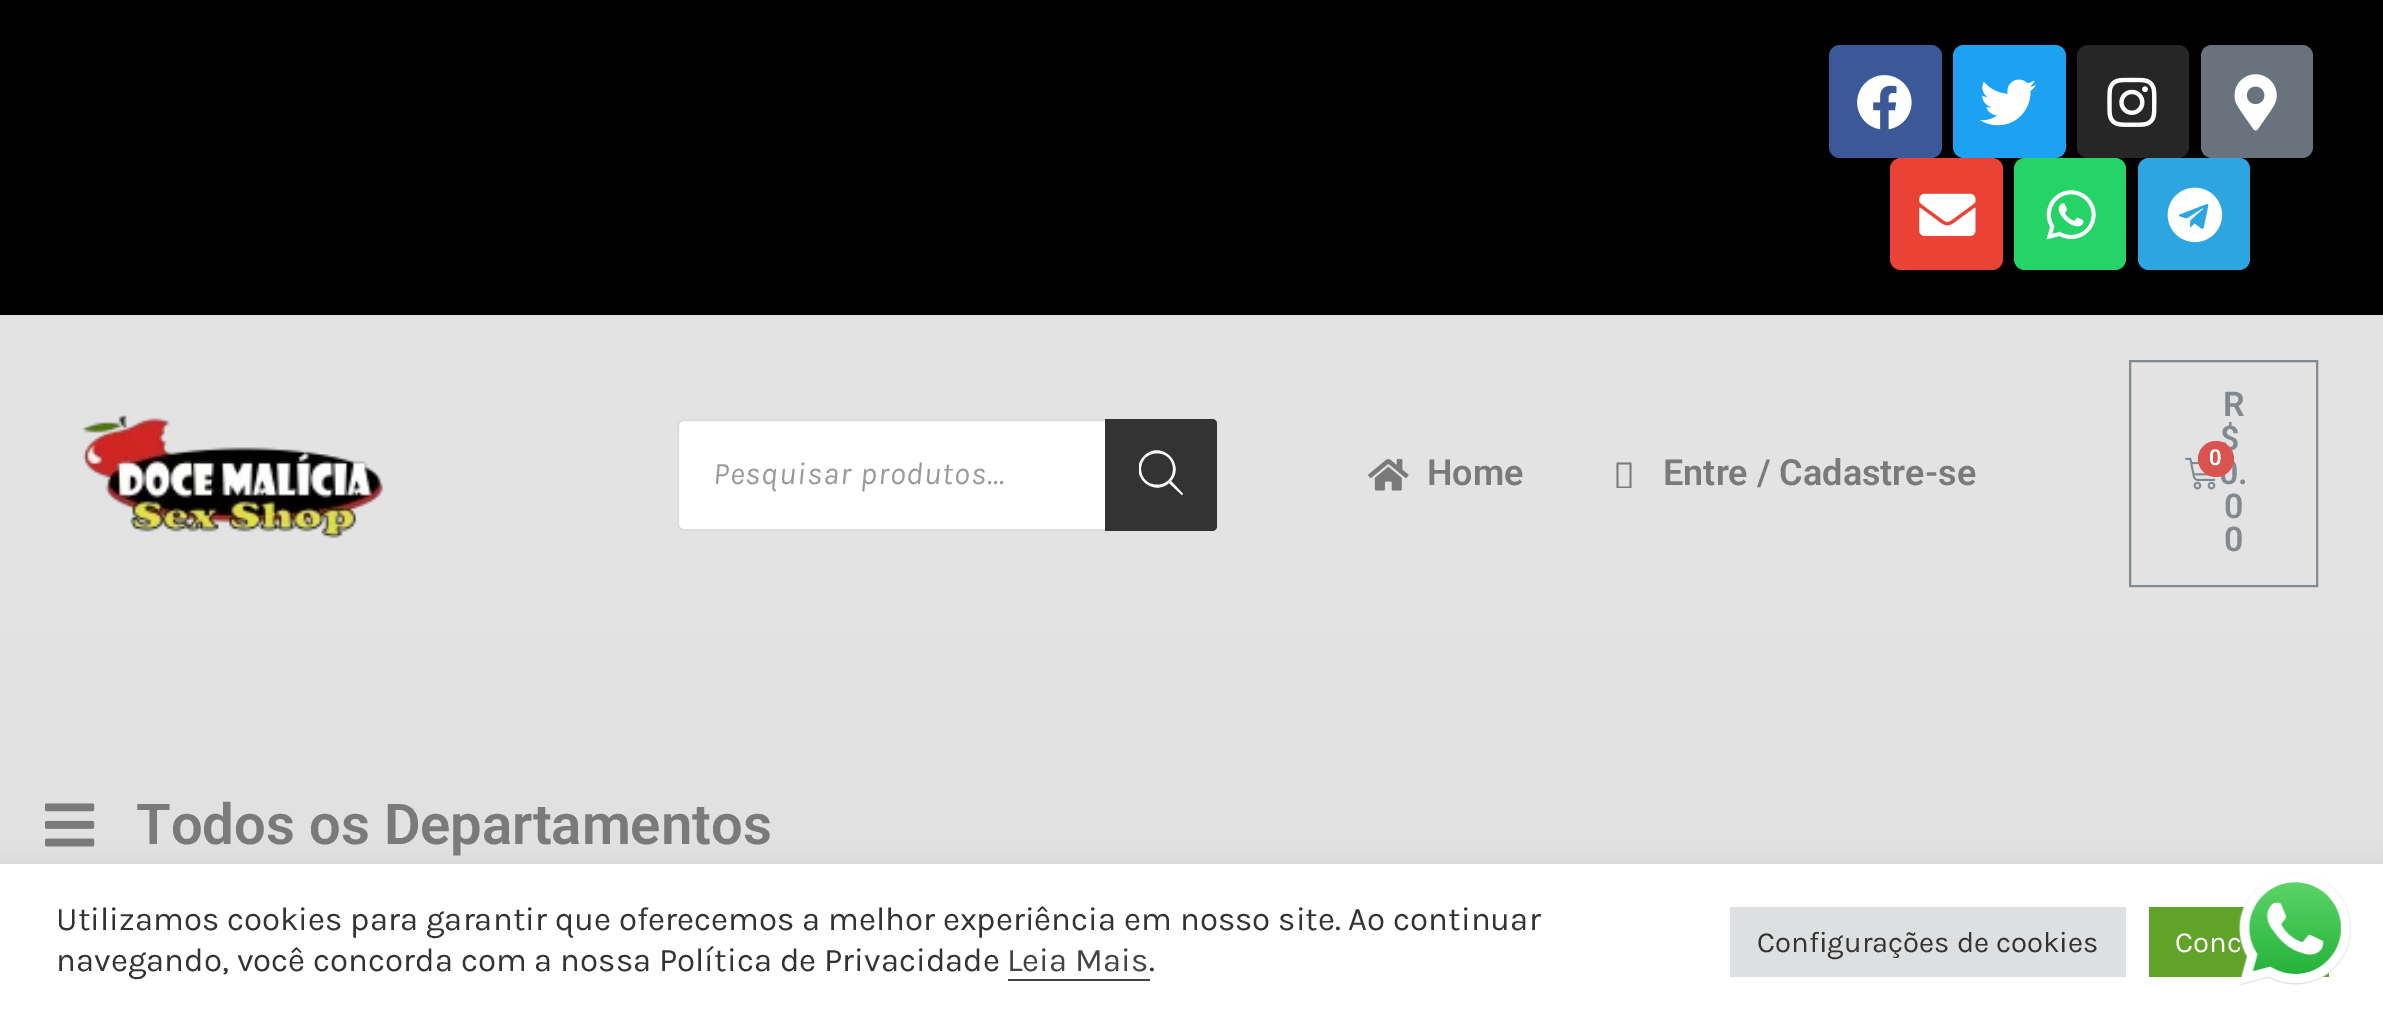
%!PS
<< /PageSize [2383 1019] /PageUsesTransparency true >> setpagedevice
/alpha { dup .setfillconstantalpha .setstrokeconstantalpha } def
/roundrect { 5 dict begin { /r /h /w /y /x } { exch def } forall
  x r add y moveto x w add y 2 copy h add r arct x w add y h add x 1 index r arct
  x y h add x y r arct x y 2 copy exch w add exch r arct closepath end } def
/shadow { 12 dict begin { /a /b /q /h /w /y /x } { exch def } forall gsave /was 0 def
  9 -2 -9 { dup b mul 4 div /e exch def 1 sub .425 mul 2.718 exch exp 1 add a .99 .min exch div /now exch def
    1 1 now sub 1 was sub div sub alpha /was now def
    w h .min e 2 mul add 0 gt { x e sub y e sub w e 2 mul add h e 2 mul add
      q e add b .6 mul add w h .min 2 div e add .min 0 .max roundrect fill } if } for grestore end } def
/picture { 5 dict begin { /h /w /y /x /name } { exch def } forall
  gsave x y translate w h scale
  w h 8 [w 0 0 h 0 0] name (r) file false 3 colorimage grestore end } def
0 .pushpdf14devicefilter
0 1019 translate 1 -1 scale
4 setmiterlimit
0 setgray
0 0 2383 1019 rectfill
0.231 0.349 0.596 setrgbcolor
1829 45 113 113 11 roundrect fill
(img1.rgb) 1857 75 55 55 picture
0.114 0.631 0.949 setrgbcolor
1953 45 113 113 11 roundrect fill
(img2.rgb) 1980 79 56 47 picture
0.149 setgray
2077 45 112 113 11 roundrect fill
(img3.rgb) 2107 77 50 50 picture
0.412 0.447 0.49 setrgbcolor
2201 45 112 113 11 roundrect fill
(img4.rgb) 2234 74 43 57 picture
0.918 0.263 0.208 setrgbcolor
1890 158 113 112 11 roundrect fill
(img5.rgb) 1919 193 57 43 picture
0.145 0.827 0.4 setrgbcolor
2014 158 112 112 11 roundrect fill
(img6.rgb) 2046 190 50 50 picture
0.173 0.647 0.878 setrgbcolor
2138 158 112 112 11 roundrect fill
(img7.rgb) 2167 187 56 56 picture
0.89 setgray
0 315 2383 317 rectfill
(img8.rgb) 82 415 302 124 picture
1 setgray
678 420 538 110 6 roundrect gsave fill grestore
0.867 setgray
2 setlinewidth
stroke
/Karla-Italic [31.5 0 0 -31.5 0 0] selectfont
0.6 setgray
713 484 moveto 1.1 0 (Pesquisar produtos...) ashow
0.2 setgray
newpath 1105 419 moveto 1212 419 lineto 1215 419 1217 421 1217 424 curveto 1217 526 lineto 1217 529 1215 531 1212 531 curveto 1105 531 lineto closepath fill
gsave
1139 437 45 74 rectclip
1 setgray
newpath 1183 494 moveto 1171 481 lineto 1186 464 1161 439 1144 456 curveto 1127 473 1152 498 1169 483 curveto 1182 495 lineto closepath 1141 469 moveto 1141 448 1173 448 1173 469 curveto 1173 490 1141 490 1141 469 curveto closepath fill
grestore
(img9.rgb) 1368 459 41 32 picture
/Roboto-SemiBold [36 0 0 -36 0 0] selectfont
0.478 setgray
1427 485 moveto (Home) show
newpath 1616.5 488 moveto 1616.5 462.5 lineto 1631.5 462.5 lineto 1631.5 488 lineto closepath 1618.5 486.5 moveto 1629.5 486.5 lineto 1629.5 464.5 lineto 1618.5 464.5 lineto closepath fill
1663 485 moveto (Entre / Cadastre-se) show
0.506 0.541 0.569 setrgbcolor
2130 361 187 225 rectstroke
(img10.rgb) 2185 457 31 33 picture
/Roboto-SemiBold [34 0 0 -34 0 0] selectfont
2220 450 moveto ($) show
2219 484 moveto (0.) show
0.851 0.325 0.31 setrgbcolor
newpath 2216 459 18 0 360 arc closepath fill
/Roboto-SemiBold [22 0 0 -22 0 0] selectfont
1 setgray
2209 465 moveto (0) show
/Roboto-SemiBold [34 0 0 -34 0 0] selectfont
0.506 0.541 0.569 setrgbcolor
2223 416 moveto (R) show
2224 518 moveto (0) show
2224 551 moveto (0) show
0.882 setgray
0 632 2383 232 rectfill
(img11.rgb) 45 803 50 44 picture
/Roboto-SemiBold [56.25 0 0 -56.25 0 0] selectfont
0.478 setgray
136 844 moveto (Todos os Departamentos) show
0.675 0.671 0.671 setrgbcolor
0 862 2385 155 0 11 0.3 shadow
1 setgray
0 864 2383 155 rectfill
/Karla-Regular [33 0 0 -33 0 0] selectfont
0.2 setgray
56 930 moveto (Utilizamos cookies para garantir que oferecemos a melhor experiência em nosso site. Ao continuar) show
56 971 moveto (navegando, você concorda com a nossa Política de Privacidade) show
0.267 setgray
1007 971 moveto (Leia Mais) show
1008 979 142 2 rectfill
0.2 setgray
1149 971 moveto (.) show
0.871 0.875 0.878 setrgbcolor
1730 907 396 70 rectfill
/Karla-Regular [29.25 0 0 -29.25 0 0] selectfont
0.2 setgray
1757 952 moveto (Configurações de cookies) show
0.38 0.635 0.161 setrgbcolor
2149 907 180 70 rectfill
1 setgray
2175 952 moveto (Conc) show
(img12.rgb) 2238 873 113 112 picture
.poppdf14devicefilter showpage
